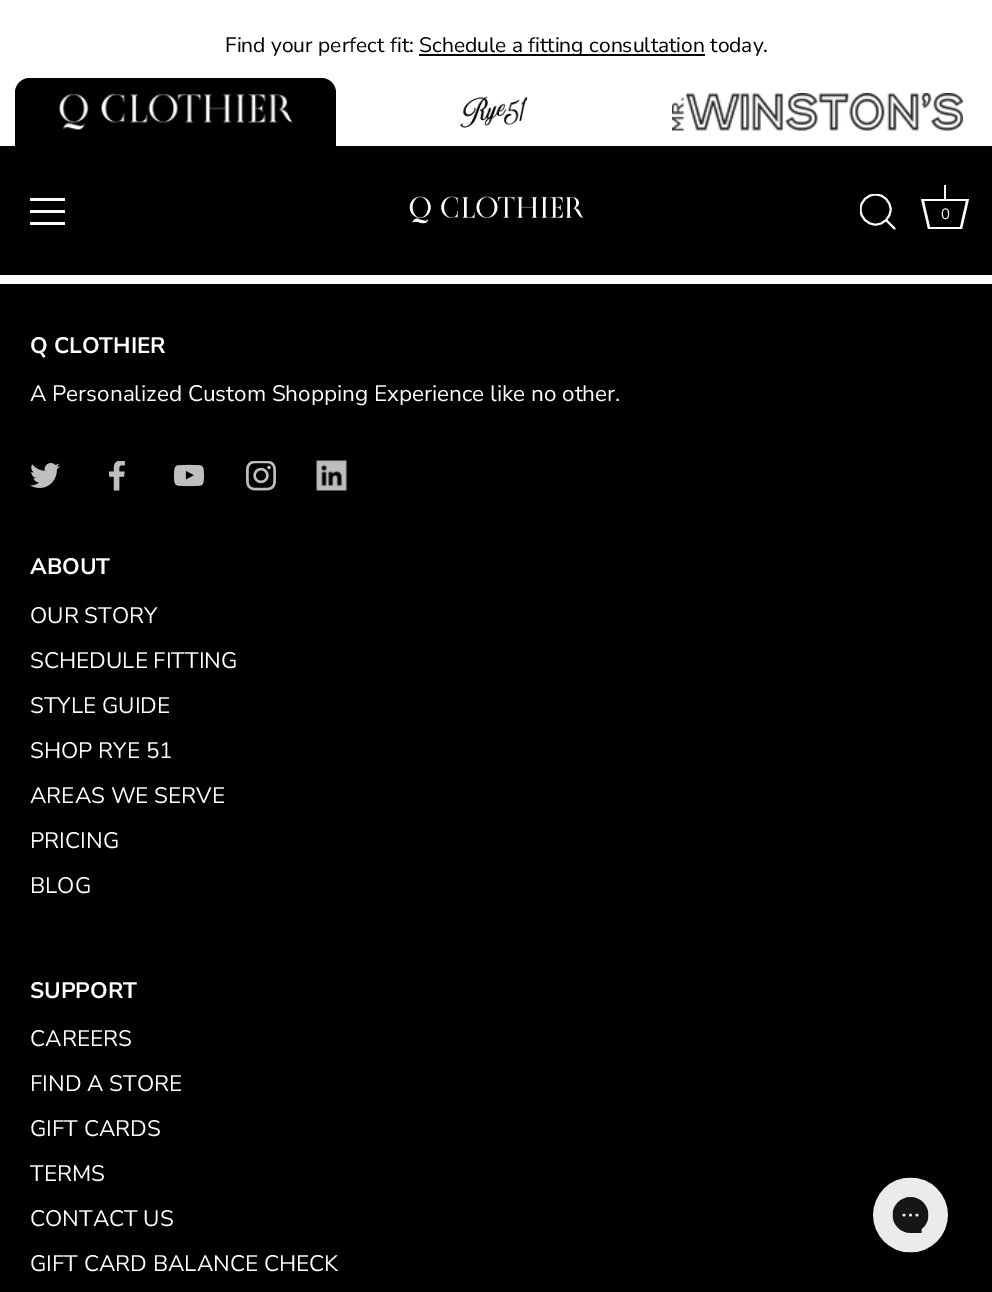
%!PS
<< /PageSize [992 1292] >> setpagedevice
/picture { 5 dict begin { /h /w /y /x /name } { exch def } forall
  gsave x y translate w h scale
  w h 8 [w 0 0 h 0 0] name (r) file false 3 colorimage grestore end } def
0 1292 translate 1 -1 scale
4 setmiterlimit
1 setgray
0 0 992 1292 rectfill
0 setgray
0 146 992 129 rectfill
/NunitoSans-Regular [21 0 0 -21 0 0] selectfont
225 52 moveto (Find your perfect fit:) show
419 54 286 2 rectfill
419 52 moveto (Schedule a fitting consultation today.) show
newpath 30 78 moveto 321 78 lineto 329.5 78 336 84.5 336 93 curveto 336 146 lineto 15 146 lineto 15 93 lineto 15 84.5 21.5 78 30 78 curveto closepath fill
(img1.rgb) 59 93 234 37 picture
(img2.rgb) 460 96 68 32 picture
(img3.rgb) 672 93 291 38 picture
1 setgray
30 198 35 3 rectfill
30 210 35 3 rectfill
30 222 35 3 rectfill
(img4.rgb) 409 196 175 28 picture
gsave
860 194 36 36 rectclip
1.9 setlinewidth
newpath 875.5 209.5 15 0 360 arc closepath stroke
grestore
1.9 setlinewidth
1 setlinecap
1 setlinejoin
newpath 894.5 228.5 moveto 886 220 lineto stroke
944 185 2 14 rectfill
newpath 966 201 moveto 960 227 lineto 930 227 lineto 924 201 lineto 966 201 lineto 969 199 moveto 921 199 lineto 928 229 lineto 962 229 lineto closepath fill
/NunitoSans-Regular [15 0 0 -15 0 0] selectfont
941 219 moveto (0) show
0 setgray
0 284 992 1008 rectfill
/NunitoSans-Bold [22.5 0 0 -22.5 0 0] selectfont
1 setgray
30 353 moveto (Q CLOTHIER) show
/NunitoSans-Regular [22.5 0 0 -22.5 0 0] selectfont
30 401 moveto (A Personalized Custom Shopping Experience like no other.) show
(img5.rgb) 30 463 30 25 picture
(img6.rgb) 109 461 16 30 picture
(img7.rgb) 174 464 30 23 picture
(img8.rgb) 246 461 30 30 picture
(img9.rgb) 316 460 31 31 picture
/NunitoSans-Bold [22.5 0 0 -22.5 0 0] selectfont
30 574 moveto (ABOUT) show
/NunitoSans-Regular [22.5 0 0 -22.5 0 0] selectfont
30 623 moveto (OUR STORY) show
30 668 moveto (SCHEDULE FITTING) show
30 713 moveto (STYLE GUIDE) show
30 758 moveto (SHOP RYE 51) show
30 803 moveto (AREAS WE SERVE) show
30 848 moveto (PRICING) show
30 893 moveto (BLOG) show
/NunitoSans-Bold [22.5 0 0 -22.5 0 0] selectfont
30 998 moveto (SUPPORT) show
/NunitoSans-Regular [22.5 0 0 -22.5 0 0] selectfont
30 1046 moveto (CAREERS) show
30 1091 moveto (FIND A STORE) show
30 1136 moveto (GIFT CARDS) show
30 1181 moveto (TERMS) show
30 1226 moveto (CONTACT US) show
30 1271 moveto (GIFT CARD BALANCE CHECK) show
(img10.rgb) 873 1177 75 76 picture
showpage
